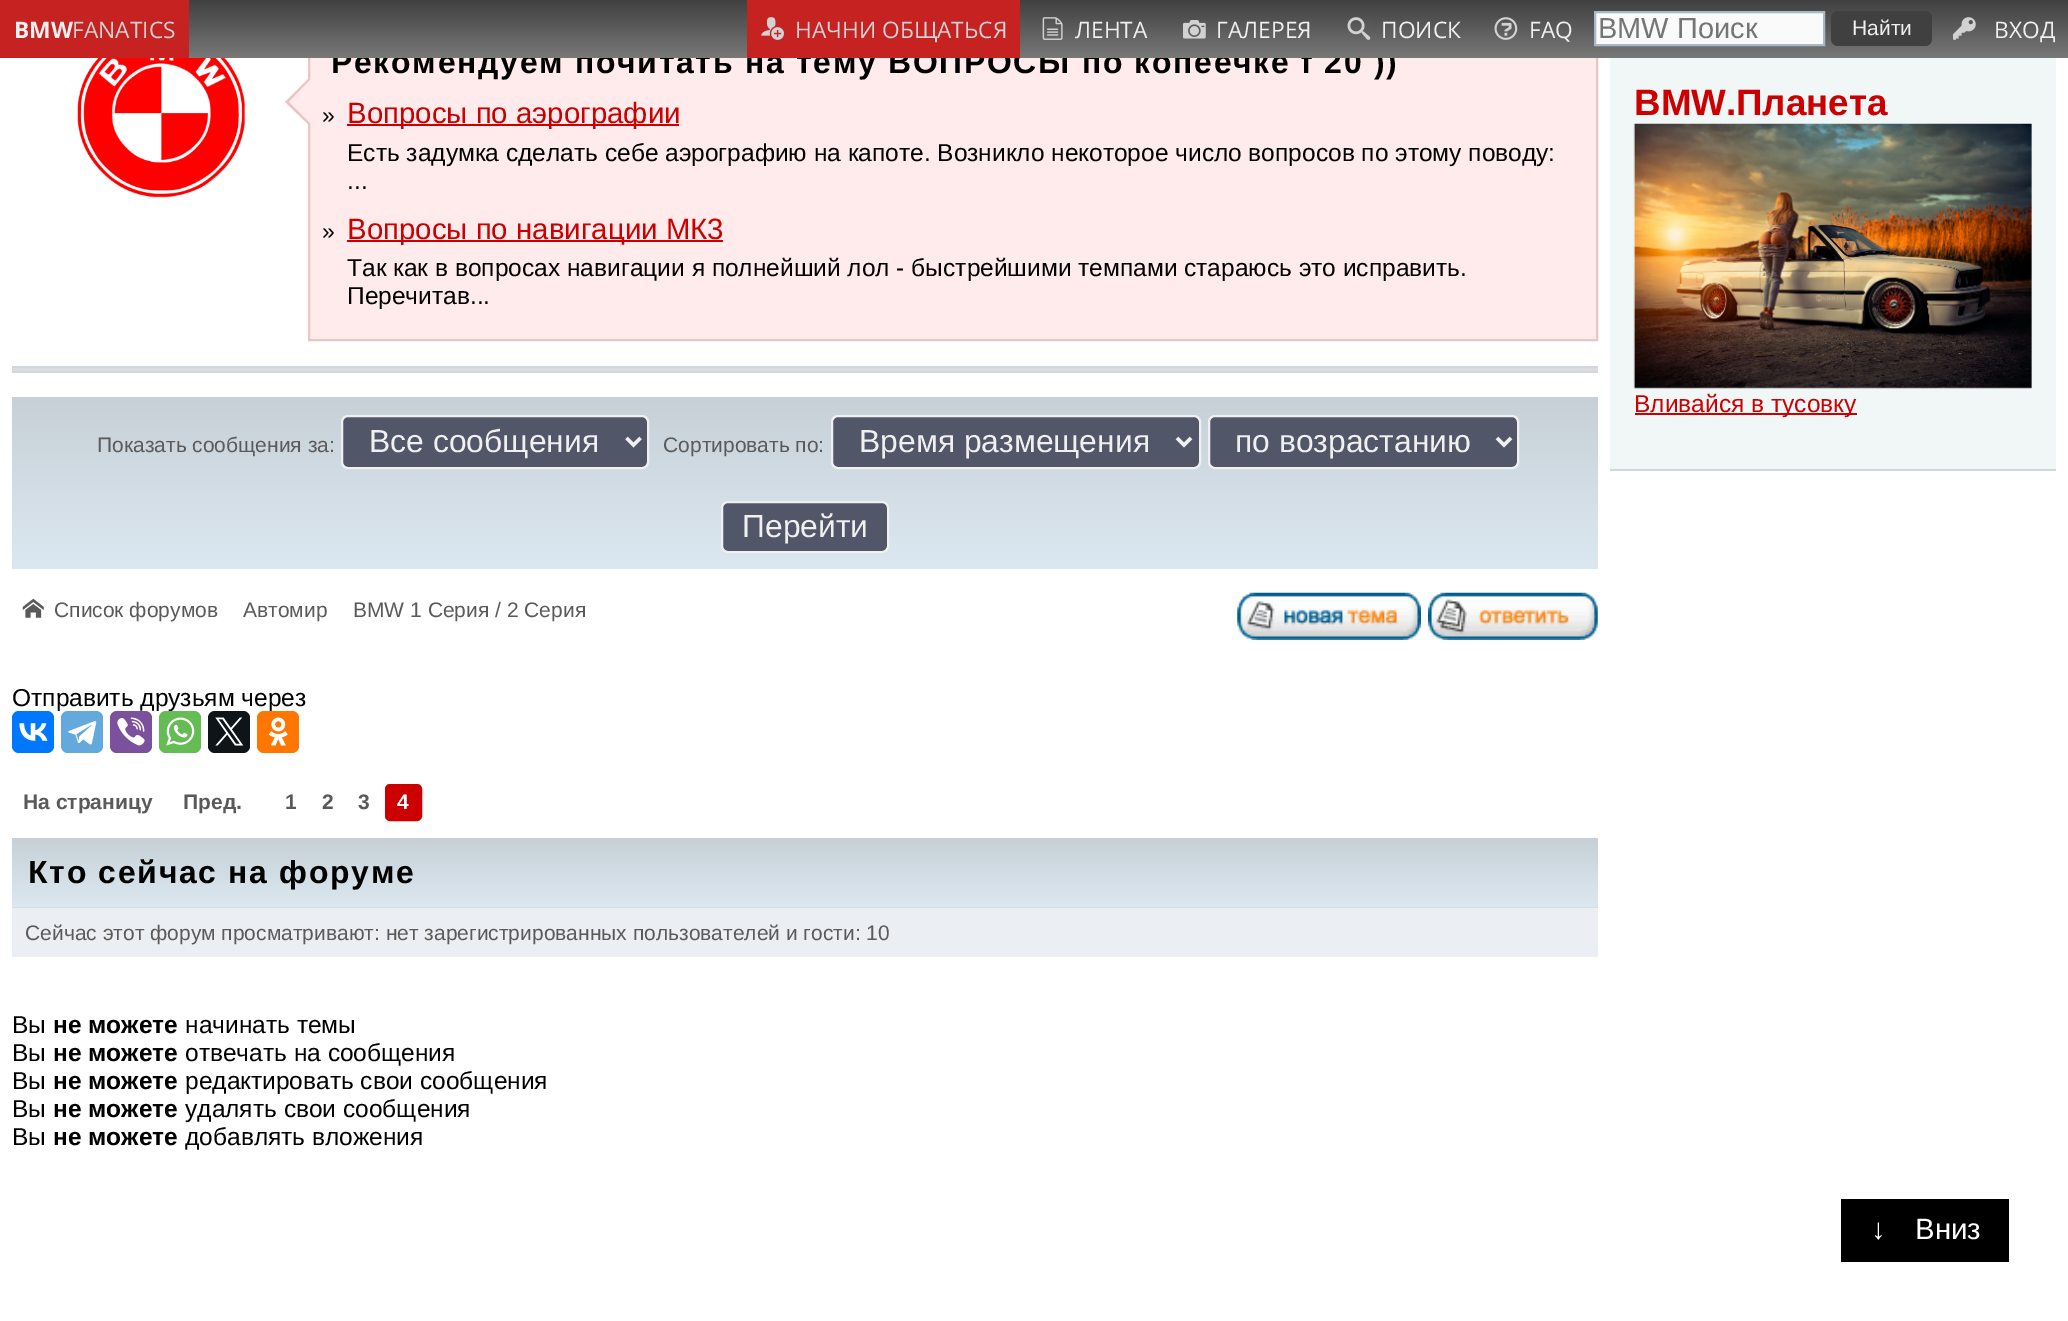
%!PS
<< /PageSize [2068 1321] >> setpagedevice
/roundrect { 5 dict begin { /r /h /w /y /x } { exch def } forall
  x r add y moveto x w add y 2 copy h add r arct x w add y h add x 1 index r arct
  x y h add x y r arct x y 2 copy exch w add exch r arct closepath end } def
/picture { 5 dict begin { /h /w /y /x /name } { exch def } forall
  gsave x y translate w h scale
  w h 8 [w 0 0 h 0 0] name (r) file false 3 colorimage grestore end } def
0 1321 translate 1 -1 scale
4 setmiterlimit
1 setgray
0 0 2068 1321 rectfill
1 0.922 0.922 setrgbcolor
310 58 1286 281 rectfill
0.91 0.776 0.776 setrgbcolor
2 setlinewidth
309 15 1288 325 rectstroke
/LiberationSans-Bold [31.85 0 0 -31.85 0 0] selectfont
0 setgray
331 73 moveto 1.75 0 (Рекомендуем почитать на тему ВОПРОСЫ по копеечке f 20 \)\)) ashow
gsave newpath 189 0 moveto 2068 0 lineto 2068 58 lineto 189 58 lineto closepath clip newpath
<< /ShadingType 2 /ColorSpace /DeviceRGB /Coords [1034 0 1034 58] /Extend [true true] /Function << /FunctionType 2 /Domain [0 1] /C0 [0.251 0.251 0.251] /C1 [0.471 0.471 0.471] /N 1 >> >> shfill grestore
0.776 0.133 0.129 setrgbcolor
0 0 189 58 rectfill
/OpenSans-Bold [22.75 0 0 -22.75 0 0] selectfont
0.941 setgray
14 38 moveto (BMW) show
/OpenSans-Regular [22.75 0 0 -22.75 0 0] selectfont
0.824 setgray
72 38 moveto (FANATICS) show
0.776 0.133 0.129 setrgbcolor
747 0 273 58 rectfill
(img1.rgb) 761 17 23 23 picture
0.824 setgray
795 38 moveto (НАЧНИ ОБЩАТЬСЯ) show
(img2.rgb) 1042 17 21 23 picture
0.941 setgray
1075 38 moveto (ЛЕНТА) show
(img3.rgb) 1183 20 23 19 picture
1216 38 moveto (ГАЛЕРЕЯ) show
(img4.rgb) 1347 17 24 23 picture
1381 38 moveto (ПОИСК) show
(img5.rgb) 1494 17 24 23 picture
1529 38 moveto (FAQ) show
0.98 setgray
newpath 1595 12 moveto 1824 12 lineto 1824 45 lineto 1595 45 lineto closepath gsave fill grestore
0.663 0.722 0.761 setrgbcolor
stroke
/LiberationSans-Regular [29 0 0 -29 0 0] selectfont
0.459 setgray
1598 38 moveto (BMW Поиск) show
0.251 setgray
1831 11 101 35 7 roundrect fill
/LiberationSans-Regular [21 0 0 -21 0 0] selectfont
0.941 setgray
1852 35 moveto (Найти) show
(img6.rgb) 1953 17 23 23 picture
/OpenSans-Regular [22.75 0 0 -22.75 0 0] selectfont
1994 38 moveto (ВХОД) show
(img7.rgb) 77 58 168 140 picture
0.91 0.776 0.776 setrgbcolor
newpath 310 77 moveto 310 126 lineto 285 102 lineto closepath fill
1 0.922 0.922 setrgbcolor
newpath 313 77 moveto 313 126 lineto 289 102 lineto closepath fill
/LiberationSans-Regular [23 0 0 -23 0 0] selectfont
0 setgray
322 123 moveto (») show
0.8 0 0 setrgbcolor
347 124 332 2 rectfill
/LiberationSans-Regular [29.4 0 0 -29.4 0 0] selectfont
347 123 moveto (Вопросы по аэрографии) show
/LiberationSans-Regular [24.5 0 0 -24.5 0 0] selectfont
0 setgray
347 161 moveto (Есть задумка сделать себе аэрографию на капоте. Возникло некоторое число вопросов по этому поводу:) show
347 189 moveto (...) show
/LiberationSans-Regular [23 0 0 -23 0 0] selectfont
322 239 moveto (») show
0.8 0 0 setrgbcolor
347 240 376 2 rectfill
/LiberationSans-Regular [29.4 0 0 -29.4 0 0] selectfont
347 239 moveto (Вопросы по навигации МК3) show
/LiberationSans-Regular [24.5 0 0 -24.5 0 0] selectfont
0 setgray
347 276 moveto (Так как в вопросах навигации я полнейший лол - быстрейшими темпами стараюсь это исправить.) show
347 304 moveto (Перечитав...) show
0.82 0.843 0.863 setrgbcolor
12 366 1586 2 rectfill
0.863 setgray
12 368 1586 3 rectfill
0.82 0.843 0.863 setrgbcolor
12 371 1586 2 rectfill
gsave newpath 12 397 moveto 1598 397 lineto 1598 569 lineto 12 569 lineto closepath clip newpath
<< /ShadingType 2 /ColorSpace /DeviceRGB /Coords [805 397 805 569] /Extend [true true] /Function << /FunctionType 2 /Domain [0 1] /C0 [0.78 0.816 0.843] /C1 [0.863 0.91 0.945] /N 1 >> >> shfill grestore
/LiberationSans-Regular [21 0 0 -21 0 0] selectfont
0.353 setgray
97 452 moveto (Показать сообщения за:) show
0.318 0.337 0.412 setrgbcolor
342 416 306 52 6 roundrect gsave fill grestore
0.941 setgray
stroke
3.5 setlinewidth
newpath 626.5 438 moveto 633.5 445 lineto 640.5 438 lineto stroke
/LiberationSans-Regular [31.85 0 0 -31.85 0 0] selectfont
369 452 moveto (Все сообщения) show
/LiberationSans-Regular [21 0 0 -21 0 0] selectfont
0.353 setgray
663 452 moveto (Сортировать по:) show
0.318 0.337 0.412 setrgbcolor
832 416 368 52 6 roundrect gsave fill grestore
0.941 setgray
2 setlinewidth
stroke
3.5 setlinewidth
newpath 1177 438 moveto 1184 445 lineto 1191 438 lineto stroke
/LiberationSans-Regular [31.85 0 0 -31.85 0 0] selectfont
859 452 moveto (Время размещения) show
0.318 0.337 0.412 setrgbcolor
1209 416 309 52 6 roundrect gsave fill grestore
0.941 setgray
2 setlinewidth
stroke
3.5 setlinewidth
newpath 1497 438 moveto 1504 445 lineto 1511 438 lineto stroke
1235 452 moveto (по возрастанию) show
0.318 0.337 0.412 setrgbcolor
722 502 166 50 6 roundrect gsave fill grestore
0.941 setgray
2 setlinewidth
stroke
742 537 moveto (Перейти) show
(img8.rgb) 22 598 22 20 picture
/LiberationSans-Regular [21 0 0 -21 0 0] selectfont
0.353 setgray
54 617 moveto (Список форумов) show
243 617 moveto (Автомир) show
353 617 moveto (BMW 1 Серия / 2 Серия) show
(img9.rgb) 1237 592 184 48 picture
(img10.rgb) 1428 592 170 48 picture
/LiberationSans-Regular [24.5 0 0 -24.5 0 0] selectfont
0 setgray
12 706 moveto (Отправить друзьям через) show
0 0.467 1 setrgbcolor
12 711 42 42 7 roundrect fill
(img11.rgb) 19 723 29 18 picture
0.392 0.663 0.863 setrgbcolor
61 711 42 42 7 roundrect fill
(img12.rgb) 68 721 29 24 picture
0.482 0.318 0.616 setrgbcolor
110 711 42 42 7 roundrect fill
(img13.rgb) 117 717 28 29 picture
0.396 0.737 0.329 setrgbcolor
159 711 42 42 7 roundrect fill
(img14.rgb) 166 717 29 29 picture
0.059 0.078 0.098 setrgbcolor
208 711 42 42 7 roundrect fill
(img15.rgb) 215 717 29 29 picture
1 0.467 0 setrgbcolor
257 711 42 42 7 roundrect fill
(img16.rgb) 268 717 20 29 picture
/LiberationSans-Bold [21 0 0 -21 0 0] selectfont
0.353 setgray
23 809 moveto (На страницу) show
183 809 moveto (Пред.) show
285 809 moveto (1) show
322 809 moveto (2) show
358 809 moveto (3) show
0.8 0 0 setrgbcolor
386 785 35 35 4 roundrect gsave fill grestore
stroke
1 setgray
397 809 moveto (4) show
gsave newpath 12 838 moveto 1598 838 lineto 1598 907 lineto 12 907 lineto closepath clip newpath
<< /ShadingType 2 /ColorSpace /DeviceRGB /Coords [805 838 805 907] /Extend [true true] /Function << /FunctionType 2 /Domain [0 1] /C0 [0.78 0.816 0.843] /C1 [0.863 0.91 0.945] /N 1 >> >> shfill grestore
0.863 setgray
12 907 1586 1 rectfill
/LiberationSans-Bold [31.85 0 0 -31.85 0 0] selectfont
0 setgray
28 883 moveto 1.75 0 (Кто сейчас на форуме) ashow
0.922 0.933 0.953 setrgbcolor
12 908 1586 49 rectfill
/LiberationSans-Regular [21 0 0 -21 0 0] selectfont
0.353 setgray
25 940 moveto (Сейчас этот форум просматривают: нет зарегистрированных пользователей и гости: 10) show
/LiberationSans-Regular [24.5 0 0 -24.5 0 0] selectfont
0 setgray
12 1033 moveto (Вы) show
/LiberationSans-Bold [24.5 0 0 -24.5 0 0] selectfont
53 1033 moveto (не можете) show
/LiberationSans-Regular [24.5 0 0 -24.5 0 0] selectfont
185 1033 moveto (начинать темы) show
12 1061 moveto (Вы) show
/LiberationSans-Bold [24.5 0 0 -24.5 0 0] selectfont
53 1061 moveto (не можете) show
/LiberationSans-Regular [24.5 0 0 -24.5 0 0] selectfont
185 1061 moveto (отвечать на сообщения) show
12 1089 moveto (Вы) show
/LiberationSans-Bold [24.5 0 0 -24.5 0 0] selectfont
53 1089 moveto (не можете) show
/LiberationSans-Regular [24.5 0 0 -24.5 0 0] selectfont
185 1089 moveto (редактировать свои сообщения) show
12 1117 moveto (Вы) show
/LiberationSans-Bold [24.5 0 0 -24.5 0 0] selectfont
53 1117 moveto (не можете) show
/LiberationSans-Regular [24.5 0 0 -24.5 0 0] selectfont
185 1117 moveto (удалять свои сообщения) show
12 1145 moveto (Вы) show
/LiberationSans-Bold [24.5 0 0 -24.5 0 0] selectfont
53 1145 moveto (не можете) show
/LiberationSans-Regular [24.5 0 0 -24.5 0 0] selectfont
185 1145 moveto (добавлять вложения) show
0.945 0.965 0.969 setrgbcolor
1610 58 446 411 rectfill
0.82 0.843 0.863 setrgbcolor
1610 469 446 2 rectfill
/LiberationSans-Bold [36.75 0 0 -36.75 0 0] selectfont
0.8 0 0 setrgbcolor
1634 115 moveto (BMW.Планета) show
(img17.rgb) 1633 123 399 266 picture
1635 413 222 2 rectfill
/LiberationSans-Regular [24.5 0 0 -24.5 0 0] selectfont
1634 412 moveto (Вливайся в тусовку) show
0 setgray
1841 1199 168 63 rectfill
/LiberationSans-Bold [29.4 0 0 -29.4 0 0] selectfont
1 setgray
1871 1239 moveto (↓) show
/LiberationSans-Regular [29.4 0 0 -29.4 0 0] selectfont
1915 1239 moveto (Вниз) show
showpage
